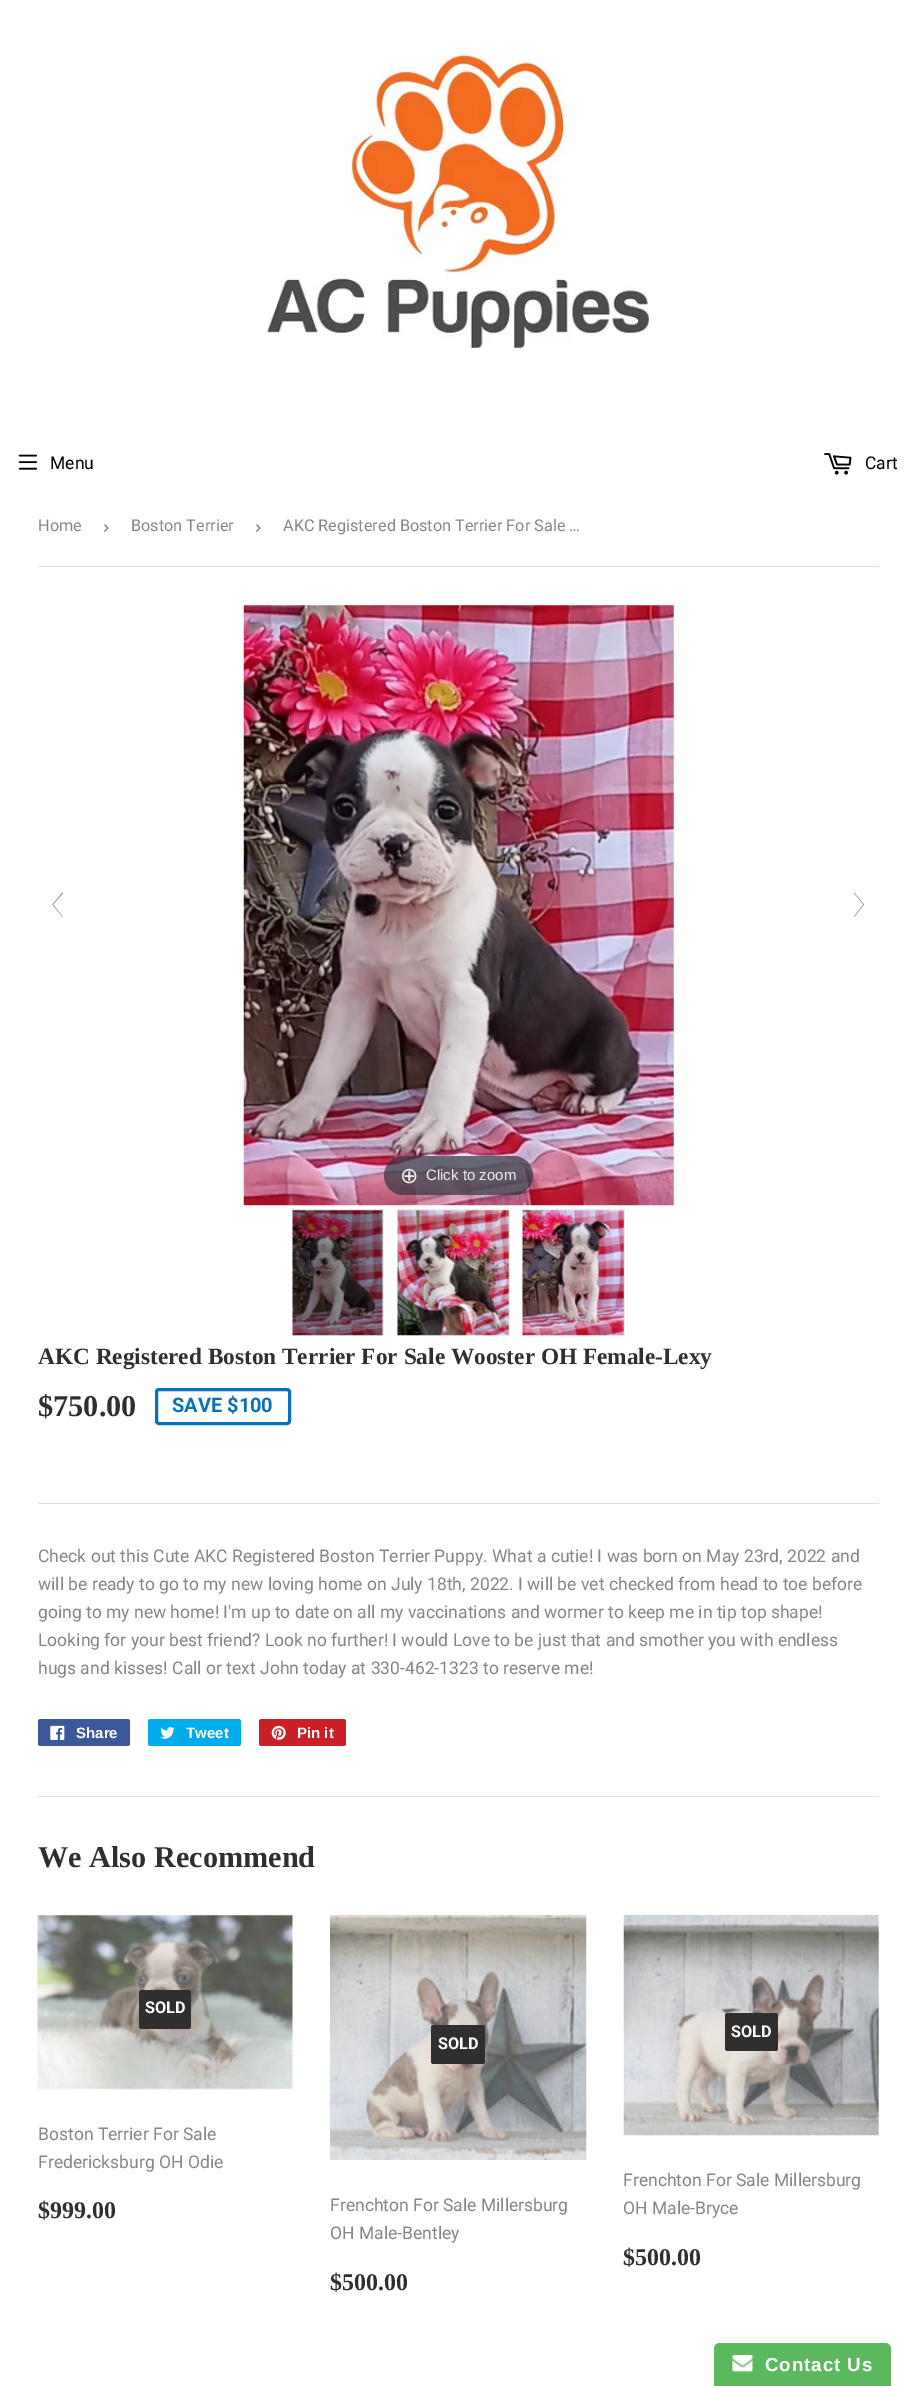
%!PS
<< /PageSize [916 2386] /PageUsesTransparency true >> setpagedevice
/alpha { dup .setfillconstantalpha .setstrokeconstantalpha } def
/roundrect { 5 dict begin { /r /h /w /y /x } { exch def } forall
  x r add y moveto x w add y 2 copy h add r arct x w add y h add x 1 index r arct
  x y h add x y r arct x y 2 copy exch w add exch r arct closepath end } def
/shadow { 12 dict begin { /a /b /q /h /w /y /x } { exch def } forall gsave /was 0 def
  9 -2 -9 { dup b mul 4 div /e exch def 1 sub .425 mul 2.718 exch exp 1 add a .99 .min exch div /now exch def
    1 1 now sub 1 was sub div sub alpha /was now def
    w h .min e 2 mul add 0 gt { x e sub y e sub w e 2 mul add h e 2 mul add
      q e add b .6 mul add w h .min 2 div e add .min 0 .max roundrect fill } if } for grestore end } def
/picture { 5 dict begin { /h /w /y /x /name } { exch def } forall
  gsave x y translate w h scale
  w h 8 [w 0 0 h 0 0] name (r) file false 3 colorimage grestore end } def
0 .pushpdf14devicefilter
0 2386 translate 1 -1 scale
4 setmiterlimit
1 setgray
0 0 916 2386 rectfill
(img1.rgb) 267 55 382 293 picture
(img2.rgb) 18 454 20 16 picture
/Roboto-Regular [17.5 0 0 -17.5 0 0] selectfont
0 setgray
50 469 moveto (Menu) show
(img3.rgb) 824 453 28 22 picture
865 469 moveto (Cart) show
0.871 setgray
38 566 841 1 rectfill
/Roboto-Regular [16.25 0 0 -16.25 0 0] selectfont
0.522 setgray
38 531 moveto (Home) show
/LiberationSans-Regular [18.75 0 0 -18.75 0 0] selectfont
0.463 setgray
103 533 moveto (›) show
/Roboto-Regular [16.25 0 0 -16.25 0 0] selectfont
0.522 setgray
131 531 moveto (Boston Terrier) show
/LiberationSans-Regular [18.75 0 0 -18.75 0 0] selectfont
0.463 setgray
255 533 moveto (›) show
/Roboto-Regular [16.25 0 0 -16.25 0 0] selectfont
0.522 setgray
283 531 moveto (AKC Registered Boston Terrier For Sale …) show
0.502 setgray
newpath 52.5 904.5 moveto 62.5 892.5 lineto 63 893 lineto 53 904.5 lineto 62.5 916.5 lineto 62.5 917 lineto closepath fill
newpath 864 904.5 moveto 854 917 lineto 854 916.5 lineto 863.5 904.5 lineto 854 893 lineto 854 892.5 lineto closepath fill
(img4.rgb) 243 605 431 601 picture
0.7 alpha
0.192 0.2 0.239 setrgbcolor
384 1156 149 39 19.5 roundrect fill
/DejaVuSans-Regular [22 0 0 -22 0 0] selectfont
1 alpha
0.933 setgray
400 1183 moveto (⊕) show
/LiberationSans-Regular [15 0 0 -15 0 0] selectfont
426 1180 moveto (Click to zoom) show
0 setgray
293 1210 90 125 0 0.5 0.3 shadow
(img5.rgb) 292 1210 91 126 picture
398 1210 111 125 0 0.5 0.3 shadow
(img6.rgb) 397 1210 112 126 picture
523 1210 101 125 0 0.5 0.3 shadow
(img7.rgb) 522 1210 102 126 picture
/LiberationSerif-Bold [23.3 0 0 -23.3 0 0] selectfont
0.184 setgray
38 1364 moveto (AKC Registered Boston Terrier For Sale Wooster OH Female-Lexy) show
/LiberationSerif-Bold [30.25 0 0 -30.25 0 0] selectfont
38 1416 moveto ($750.00) show
0.043 0.443 0.714 setrgbcolor
3 setlinewidth
156.5 1389.5 133 34 2.5 roundrect stroke
/Roboto-Bold [20 0 0 -20 0 0] selectfont
172 1412 moveto (SAVE $100) show
0.871 setgray
38 1503 841 1 rectfill
/Roboto-Regular [17.5 0 0 -17.5 0 0] selectfont
0.522 setgray
38 1562 moveto (Check out this Cute AKC Registered Boston Terrier Puppy. What a cutie! I was born on May 23rd, 2022 and) show
38 1590 moveto (will be ready to go to my new loving home on July 18th, 2022. I will be vet checked from head to toe before) show
38 1618 moveto (going to my new home! I'm up to date on all my vaccinations and wormer to keep me in tip top shape!) show
38 1646 moveto (Looking for your best friend? Look no further! I would Love to be just that and smother you with endless) show
38 1674 moveto (hugs and kisses! Call or text John today at 330-462-1323 to reserve me!) show
0.231 0.349 0.596 setrgbcolor
38 1719 92 27 2.5 roundrect fill
(img8.rgb) 50 1725 15 15 picture
/LiberationSans-Bold [15 0 0 -15 0 0] selectfont
1 setgray
76 1738 moveto (Share) show
0 0.675 0.929 setrgbcolor
148 1719 93 27 2.5 roundrect fill
(img9.rgb) 160 1727 15 12 picture
1 setgray
186 1738 moveto (Tweet) show
0.796 0.125 0.153 setrgbcolor
259 1719 87 27 2.5 roundrect fill
(img10.rgb) 271 1725 15 15 picture
1 setgray
297 1738 moveto (Pin it) show
0.871 setgray
38 1796 841 1 rectfill
/LiberationSerif-Bold [30.25 0 0 -30.25 0 0] selectfont
0.184 setgray
38 1867 moveto (We Also Recommend) show
(img11.rgb) 37 1915 256 175 picture
139 1990 52 39 2.5 roundrect fill
/Roboto-Bold [16.25 0 0 -16.25 0 0] selectfont
1 setgray
145 2013 moveto (SOLD) show
/Roboto-Regular [17.5 0 0 -17.5 0 0] selectfont
0.522 setgray
38 2140 moveto (Boston Terrier For Sale) show
38 2168 moveto (Fredericksburg OH Odie) show
/LiberationSerif-Bold [24 0 0 -24 0 0] selectfont
0.184 setgray
38 2218 moveto ($999.00) show
(img12.rgb) 330 1915 257 245 picture
431 2025 54 39 2.5 roundrect fill
/Roboto-Bold [16.25 0 0 -16.25 0 0] selectfont
1 setgray
438 2049 moveto (SOLD) show
/Roboto-Regular [17.5 0 0 -17.5 0 0] selectfont
0.522 setgray
330 2211 moveto (Frenchton For Sale Millersburg) show
330 2239 moveto (OH Male-Bentley) show
/LiberationSerif-Bold [24 0 0 -24 0 0] selectfont
0.184 setgray
330 2290 moveto ($500.00) show
(img13.rgb) 623 1915 256 221 picture
725 2013 53 38 2.5 roundrect fill
/Roboto-Bold [16.25 0 0 -16.25 0 0] selectfont
1 setgray
731 2037 moveto (SOLD) show
/Roboto-Regular [17.5 0 0 -17.5 0 0] selectfont
0.522 setgray
623 2186 moveto (Frenchton For Sale Millersburg) show
623 2214 moveto (OH Male-Bryce) show
/LiberationSerif-Bold [24 0 0 -24 0 0] selectfont
0.184 setgray
623 2265 moveto ($500.00) show
0.361 0.722 0.361 setrgbcolor
newpath 720 2343 moveto 885 2343 lineto 888.5 2343 891 2345.5 891 2349 curveto 891 2386 lineto 714 2386 lineto 714 2349 lineto 714 2345.5 716.5 2343 720 2343 curveto closepath fill
(img14.rgb) 732 2355 21 17 picture
/LiberationSans-Bold [18.75 0 0 -18.75 0 0] selectfont
1 setgray
765 2371 moveto 0.9 0 (Contact Us) ashow
.poppdf14devicefilter showpage
